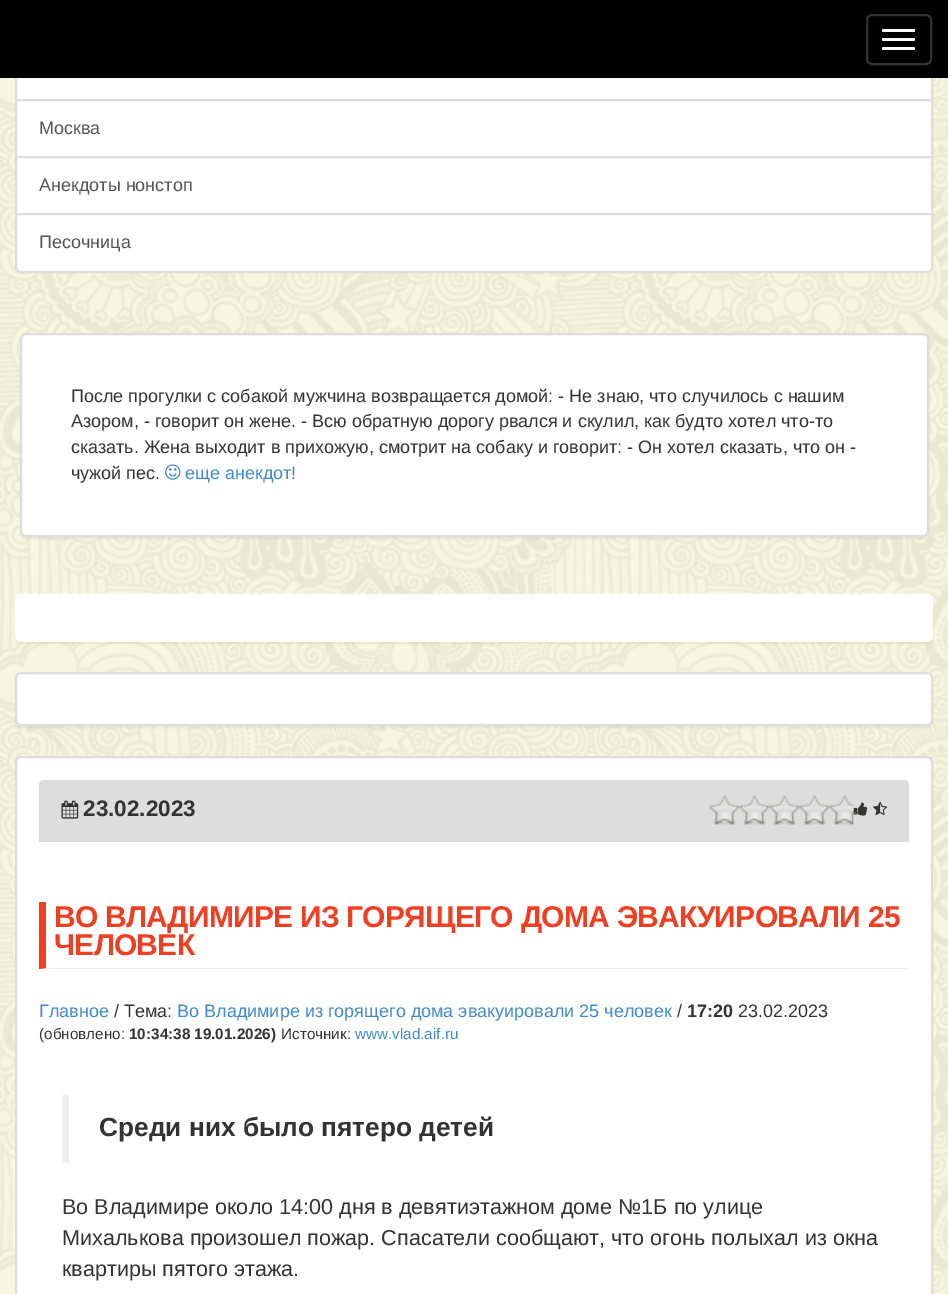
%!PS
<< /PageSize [948 1294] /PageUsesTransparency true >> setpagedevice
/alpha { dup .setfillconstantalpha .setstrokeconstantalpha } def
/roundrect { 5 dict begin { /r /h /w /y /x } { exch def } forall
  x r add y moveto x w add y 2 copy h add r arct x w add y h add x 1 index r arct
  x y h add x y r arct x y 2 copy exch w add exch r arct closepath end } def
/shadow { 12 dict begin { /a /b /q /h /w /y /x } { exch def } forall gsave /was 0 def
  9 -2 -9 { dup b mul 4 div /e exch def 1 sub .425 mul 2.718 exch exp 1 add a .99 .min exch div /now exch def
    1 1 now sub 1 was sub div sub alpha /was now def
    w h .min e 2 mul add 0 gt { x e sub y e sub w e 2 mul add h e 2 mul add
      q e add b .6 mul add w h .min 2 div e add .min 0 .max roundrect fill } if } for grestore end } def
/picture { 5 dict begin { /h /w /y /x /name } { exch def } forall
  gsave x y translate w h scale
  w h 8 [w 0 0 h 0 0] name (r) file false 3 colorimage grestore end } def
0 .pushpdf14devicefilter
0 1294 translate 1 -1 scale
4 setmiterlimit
1 setgray
0 0 948 1294 rectfill
(img1.rgb) 0 78 948 1216 picture
17 78 914 21 rectfill
0.867 setgray
2 setlinewidth
16 43 916 57 rectstroke
0 setgray
0 0 948 78 rectfill
0.2 setgray
867 15 64 49 5 roundrect stroke
1 setgray
882 29 33 3 1.5 roundrect fill
882 38 33 3 1.5 roundrect fill
882 47 33 3 1.5 roundrect fill
newpath 16 100 moveto 932 100 lineto 932 157 lineto 16 157 lineto closepath gsave fill grestore
0.867 setgray
stroke
/LiberationSans-Regular [18 0 0 -18 0 0] selectfont
0.333 setgray
39 134 moveto (Москва) show
1 setgray
newpath 16 157 moveto 932 157 lineto 932 214 lineto 16 214 lineto closepath gsave fill grestore
0.867 setgray
stroke
0.333 setgray
39 191 moveto (Анекдоты нонстоп) show
1 setgray
newpath 16 214 moveto 932 214 lineto 932 267 lineto 932 270 930 272 927 272 curveto 21 272 lineto 18 272 16 270 16 267 curveto closepath gsave fill grestore
0.867 setgray
stroke
0.333 setgray
39 248 moveto (Песочница) show
0 setgray
20 335 909 204 6 1 0.05 shadow
1 setgray
21 334 907 202 5 roundrect gsave fill grestore
0.867 setgray
stroke
0.2 setgray
71 402 moveto (После прогулки с собакой мужчина возвращается домой: - Не знаю, что случилось с нашим) show
71 427 moveto (Азором, - говорит он жене. - Всю обратную дорогу рвался и скулил, как будто хотел что-то) show
71 453 moveto (сказать. Жена выходит в прихожую, смотрит на собаку и говорит: - Он хотел сказать, что он -) show
71 479 moveto (чужой пес.) show
(img2.rgb) 165 464 16 16 picture
0.259 0.545 0.792 setrgbcolor
185 479 moveto (еще анекдот!) show
0 setgray
15 596 918 48 6 1 0.05 shadow
1 setgray
15 594 918 48 6 roundrect fill
0 setgray
15 674 918 54 6 1 0.05 shadow
1 setgray
16 673 916 52 5 roundrect gsave fill grestore
0.867 setgray
stroke
1 setgray
16 757 916 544 5 roundrect gsave fill grestore
0.867 setgray
stroke
newpath 44 780 moveto 904 780 lineto 907 780 909 782 909 785 curveto 909 842 lineto 39 842 lineto 39 785 lineto 39 782 41 780 44 780 curveto closepath fill
(img3.rgb) 61 800 18 19 picture
/LiberationSans-Bold [22.5 0 0 -22.5 0 0] selectfont
0.2 setgray
83 816 moveto (23.02.2023) show
(img5.rgb) 853 802 15 14 picture
(img4.rgb) 709 795 145 30 picture
(img6.rgb) 873 801 15 15 picture
0.933 setgray
newpath 909 969 moveto 39 969 lineto 46 968 lineto 909 968 lineto closepath fill
0.937 0.247 0.137 setrgbcolor
newpath 39 969 moveto 39 902 lineto 46 902 lineto 46 968 lineto closepath fill
/LiberationSans-Bold [30 0 0 -30 0 0] selectfont
54 927 moveto -0.75 0 (ВО ВЛАДИМИРЕ ИЗ ГОРЯЩЕГО ДОМА ЭВАКУИРОВАЛИ 25) ashow
54 955 moveto -0.75 0 (ЧЕЛОВЕК) ashow
/LiberationSans-Regular [18 0 0 -18 0 0] selectfont
0.259 0.545 0.792 setrgbcolor
39 1017 moveto (Главное) show
0.2 setgray
114 1017 moveto (/ Тема:) show
0.259 0.545 0.792 setrgbcolor
177 1017 moveto (Во Владимире из горящего дома эвакуировали 25 человек) show
0.2 setgray
677 1017 moveto (/) show
/LiberationSans-Bold [18 0 0 -18 0 0] selectfont
687 1017 moveto (17:20) show
/LiberationSans-Regular [18 0 0 -18 0 0] selectfont
738 1017 moveto (23.02.2023) show
/LiberationSans-Regular [15.25 0 0 -15.25 0 0] selectfont
39 1039 moveto (\(обновлено:) show
/LiberationSans-Bold [15.25 0 0 -15.25 0 0] selectfont
129 1039 moveto (10:34:38 19.01.2026\)) show
/LiberationSans-Regular [15.25 0 0 -15.25 0 0] selectfont
281 1039 moveto (Источник:) show
0.259 0.545 0.792 setrgbcolor
355 1039 moveto (www.vlad.aif.ru) show
0.933 setgray
62 1095 7 68 rectfill
/LiberationSans-Bold [26.25 0 0 -26.25 0 0] selectfont
0.2 setgray
99 1136 moveto (Среди них было пятеро детей) show
/LiberationSans-Regular [21.6 0 0 -21.6 0 0] selectfont
62 1214 moveto (Во Владимире около 14:00 дня в девятиэтажном доме №1Б по улице) show
62 1245 moveto (Михалькова произошел пожар. Спасатели сообщают, что огонь полыхал из окна) show
62 1276 moveto (квартиры пятого этажа.) show
.poppdf14devicefilter showpage
